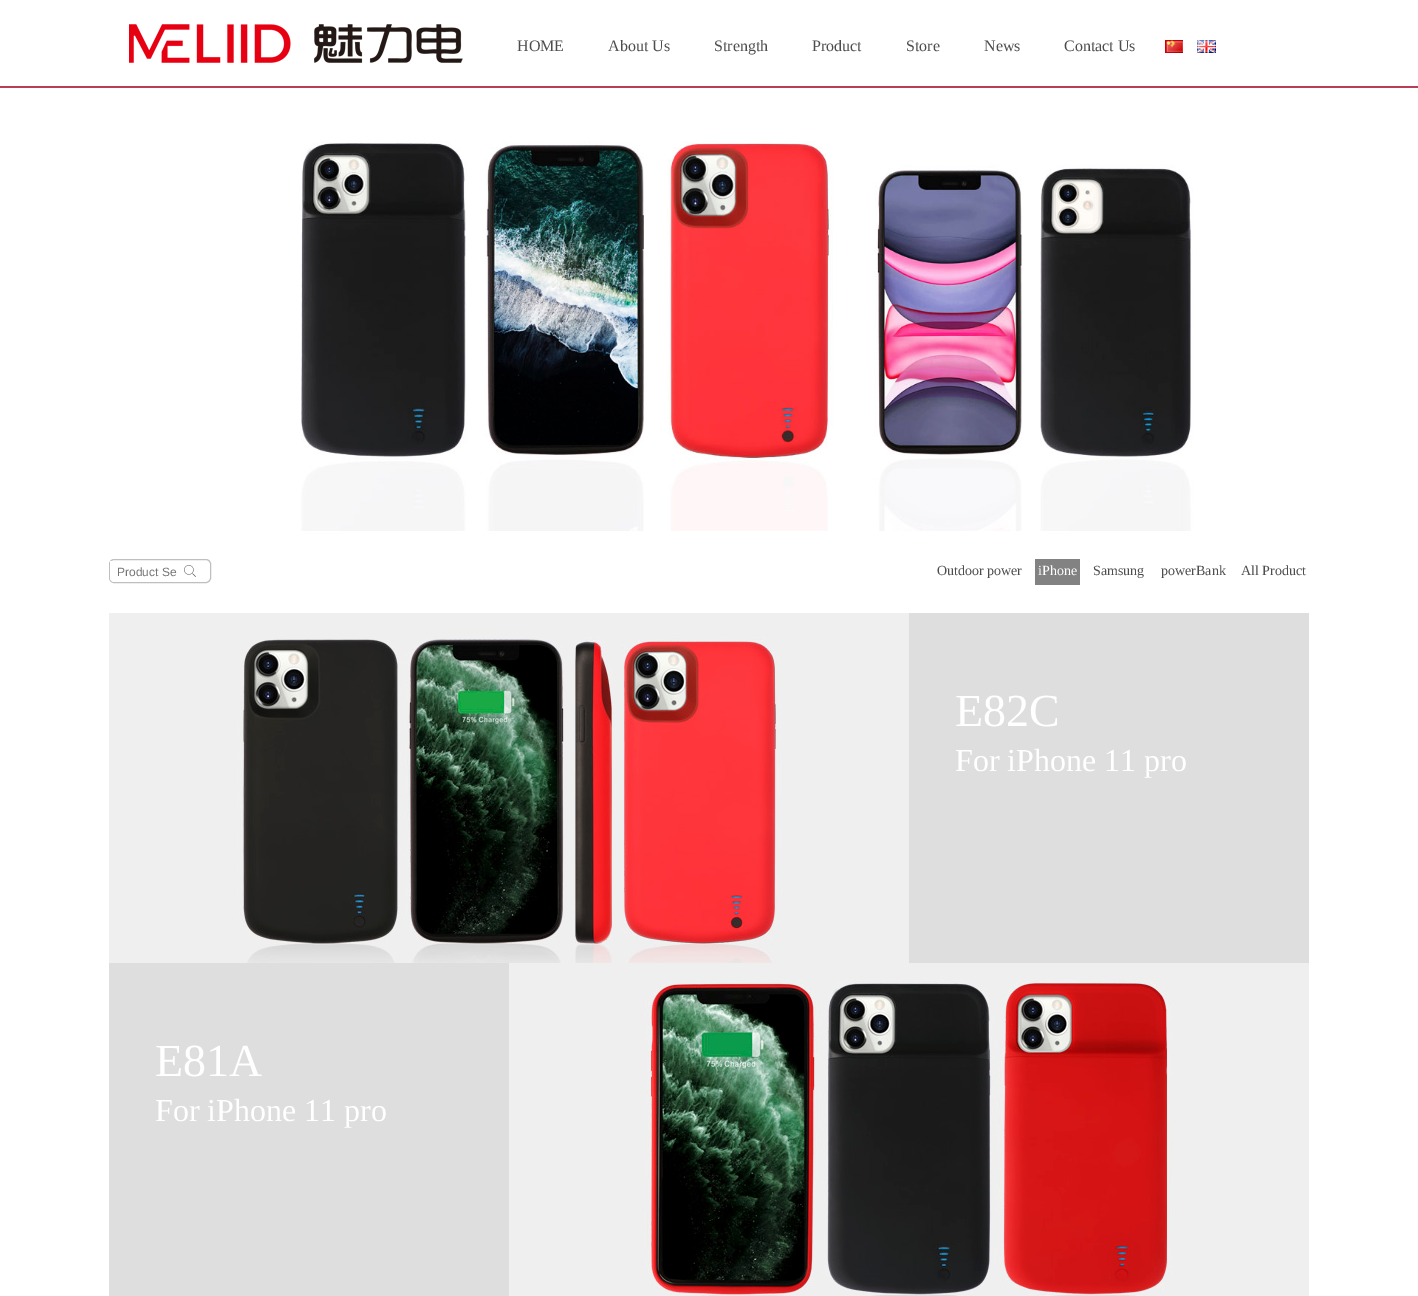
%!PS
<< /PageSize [1418 1296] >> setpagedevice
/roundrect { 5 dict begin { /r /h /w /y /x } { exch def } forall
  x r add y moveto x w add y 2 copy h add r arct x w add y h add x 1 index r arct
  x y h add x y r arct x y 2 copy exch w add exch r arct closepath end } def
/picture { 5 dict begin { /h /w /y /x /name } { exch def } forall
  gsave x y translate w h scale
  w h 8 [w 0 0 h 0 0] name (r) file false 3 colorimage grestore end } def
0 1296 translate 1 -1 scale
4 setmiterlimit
1 setgray
0 0 1418 1296 rectfill
0.725 0.239 0.341 setrgbcolor
0 86 1418 2 rectfill
(img1.rgb) 129 24 334 39 picture
/LiberationSerif-Regular [16 0 0 -16 0 0] selectfont
0.302 setgray
517 51 moveto (HOME) show
608 51 moveto (About Us) show
714 51 moveto (Strength) show
812 51 moveto (Product) show
906 51 moveto (Store) show
984 51 moveto (News) show
1064 51 moveto (Contact Us) show
(img2.rgb) 1165 40 18 13 picture
(img3.rgb) 1197 40 19 13 picture
(img4.rgb) 301 141 892 390 picture
0.749 setgray
109.5 559.5 101 23 4.5 roundrect stroke
gsave
110 560 100 22 4 roundrect clip newpath
1 setgray
newpath 110 561 moveto 182 561 lineto 182 582 lineto 114 582 lineto 112 582 110 580 110 578 curveto closepath fill
grestore
/LiberationSans-Regular [12 0 0 -12 0 0] selectfont
0.459 setgray
117 576 moveto (Product Se) show
(img5.rgb) 184 565 12 12 picture
/LiberationSerif-Regular [14 0 0 -14 0 0] selectfont
0.302 setgray
937 575 moveto (Outdoor power) show
0.51 setgray
1035 559 45 26 rectfill
1 setgray
1038 575 moveto (iPhone) show
0.302 setgray
1093 575 moveto (Samsung) show
1161 575 moveto (powerBank) show
1241 575 moveto (All Product) show
(img6.rgb) 109 613 800 350 picture
0.871 setgray
909 613 400 350 rectfill
/LiberationSerif-Regular [46 0 0 -46 0 0] selectfont
1 setgray
955 726 moveto (E82C) show
/LiberationSerif-Regular [32 0 0 -32 0 0] selectfont
955 771 moveto (For iPhone 11 pro) show
0.871 setgray
109 963 400 333 rectfill
/LiberationSerif-Regular [46 0 0 -46 0 0] selectfont
1 setgray
155 1076 moveto (E81A) show
/LiberationSerif-Regular [32 0 0 -32 0 0] selectfont
155 1121 moveto (For iPhone 11 pro) show
(img7.rgb) 509 963 800 333 picture
showpage
